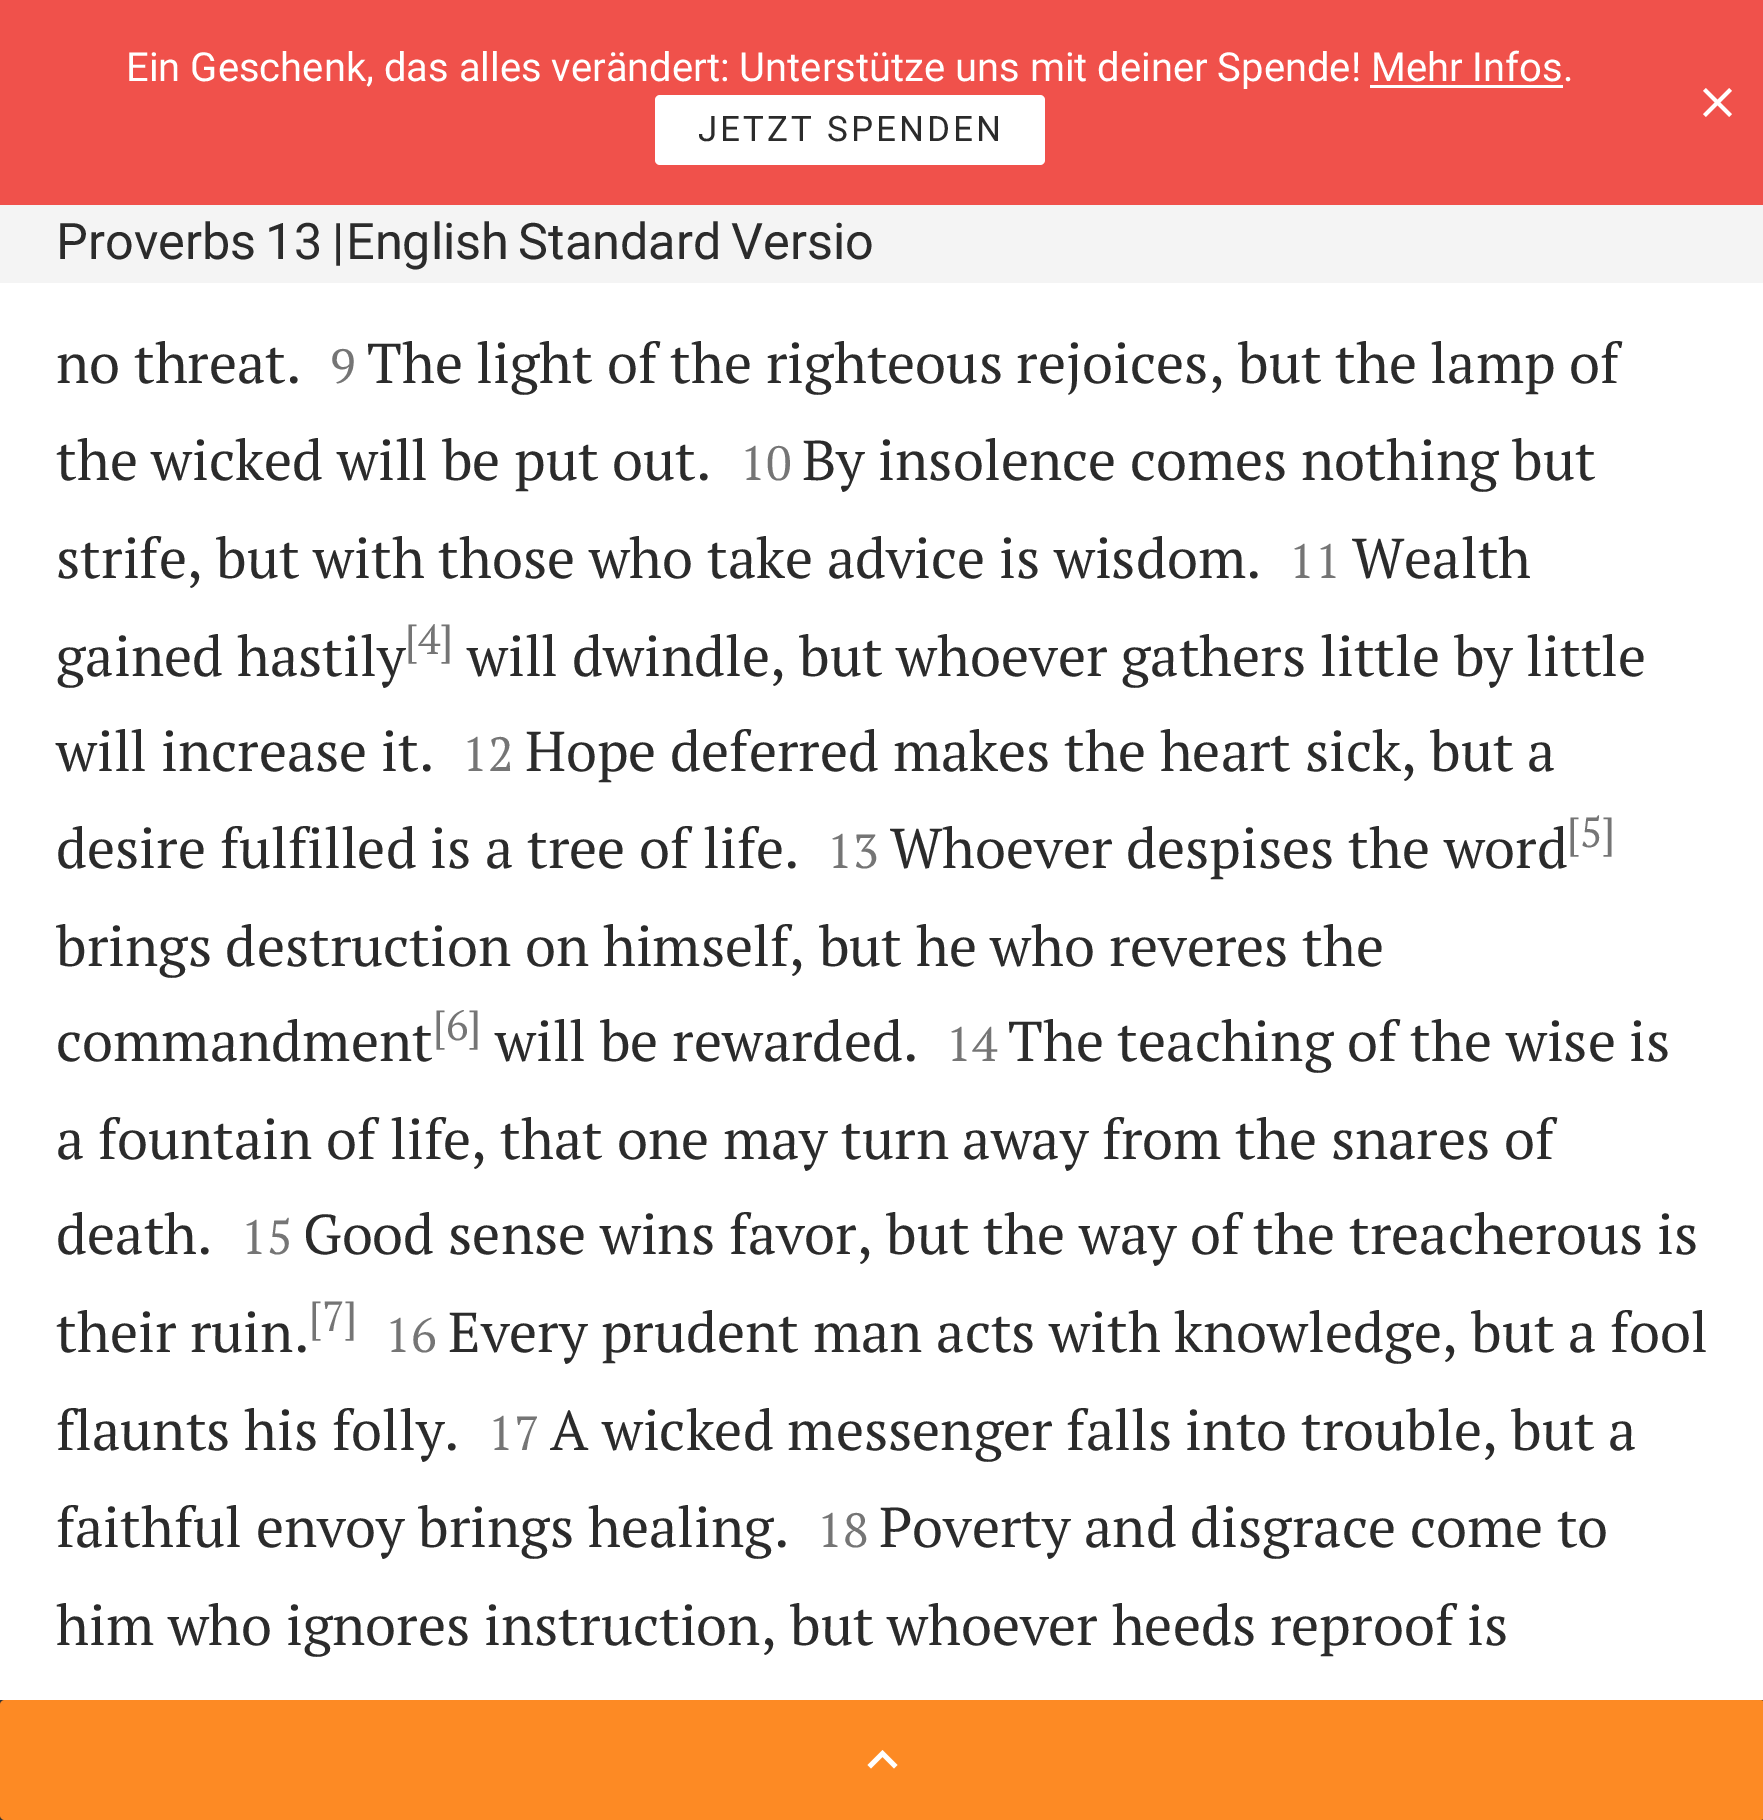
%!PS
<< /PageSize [1763 1820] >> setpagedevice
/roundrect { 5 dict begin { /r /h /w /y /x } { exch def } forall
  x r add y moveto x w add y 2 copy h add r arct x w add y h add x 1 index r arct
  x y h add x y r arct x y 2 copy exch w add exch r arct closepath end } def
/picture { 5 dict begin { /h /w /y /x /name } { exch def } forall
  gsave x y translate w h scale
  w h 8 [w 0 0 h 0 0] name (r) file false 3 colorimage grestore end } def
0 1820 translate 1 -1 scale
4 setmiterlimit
1 setgray
0 0 1763 1820 rectfill
0.941 0.318 0.294 setrgbcolor
0 0 1763 205 rectfill
/Roboto-Regular [40 0 0 -40 0 0] selectfont
1 setgray
126 81 moveto (Ein Geschenk, das alles verändert: Unterstütze uns mit deiner Spende! Mehr Infos.) show
1370 85 193 3 rectfill
655 95 390 70 5 roundrect fill
/Roboto-Regular [35 0 0 -35 0 0] selectfont
0.169 setgray
698 141 moveto 3.1 0 (JETZT SPENDEN) ashow
(img1.rgb) 1703 88 29 29 picture
0.957 setgray
0 205 1763 78 rectfill
/Roboto-Regular [50.4 0 0 -50.4 0 0] selectfont
0.169 setgray
56 259 moveto -3 0 32 (Proverbs 13 |) widthshow
346 259 moveto -3 0 32 (English Standard Versio) widthshow
/PTSerif-Regular [56 0 0 -56 0 0] selectfont
56 383 moveto (no threat.) show
/PTSerif-Regular [48 0 0 -48 0 0] selectfont
0.459 setgray
330 383 moveto (9) show
/PTSerif-Regular [56 0 0 -56 0 0] selectfont
0.169 setgray
367 383 moveto (The light of the righteous rejoices, but the lamp of) show
56 480 moveto (the wicked will be put out.) show
/PTSerif-Regular [48 0 0 -48 0 0] selectfont
0.459 setgray
740 480 moveto (10) show
/PTSerif-Regular [56 0 0 -56 0 0] selectfont
0.169 setgray
802 480 moveto (By insolence comes nothing but) show
56 578 moveto (strife, but with those who take advice is wisdom.) show
/PTSerif-Regular [48 0 0 -48 0 0] selectfont
0.459 setgray
1289 578 moveto (11) show
/PTSerif-Regular [56 0 0 -56 0 0] selectfont
0.169 setgray
1352 578 moveto (Wealth) show
56 676 moveto (gained hastily) show
/PTSerif-Regular [42 0 0 -42 0 0] selectfont
0.459 setgray
405 654 moveto ([4]) show
/PTSerif-Regular [56 0 0 -56 0 0] selectfont
0.169 setgray
467 676 moveto (will dwindle, but whoever gathers little by little) show
56 771 moveto (will increase it.) show
/PTSerif-Regular [48 0 0 -48 0 0] selectfont
0.459 setgray
462 771 moveto (12) show
/PTSerif-Regular [56 0 0 -56 0 0] selectfont
0.169 setgray
525 771 moveto (Hope deferred makes the heart sick, but a) show
56 868 moveto (desire fulfilled is a tree of life.) show
/PTSerif-Regular [48 0 0 -48 0 0] selectfont
0.459 setgray
827 868 moveto (13) show
/PTSerif-Regular [56 0 0 -56 0 0] selectfont
0.169 setgray
890 868 moveto (Whoever despises the word) show
/PTSerif-Regular [42 0 0 -42 0 0] selectfont
0.459 setgray
1567 847 moveto ([5]) show
/PTSerif-Regular [56 0 0 -56 0 0] selectfont
0.169 setgray
56 966 moveto (brings destruction on himself, but he who reveres the) show
56 1061 moveto (commandment) show
/PTSerif-Regular [42 0 0 -42 0 0] selectfont
0.459 setgray
433 1040 moveto ([6]) show
/PTSerif-Regular [56 0 0 -56 0 0] selectfont
0.169 setgray
495 1061 moveto (will be rewarded.) show
/PTSerif-Regular [48 0 0 -48 0 0] selectfont
0.459 setgray
946 1061 moveto (14) show
/PTSerif-Regular [56 0 0 -56 0 0] selectfont
0.169 setgray
1008 1061 moveto (The teaching of the wise is) show
56 1159 moveto (a fountain of life, that one may turn away from the snares of) show
56 1254 moveto (death.) show
/PTSerif-Regular [48 0 0 -48 0 0] selectfont
0.459 setgray
241 1254 moveto (15) show
/PTSerif-Regular [56 0 0 -56 0 0] selectfont
0.169 setgray
303 1254 moveto (Good sense wins favor, but the way of the treacherous is) show
56 1352 moveto (their ruin.) show
/PTSerif-Regular [42 0 0 -42 0 0] selectfont
0.459 setgray
309 1331 moveto ([7]) show
/PTSerif-Regular [48 0 0 -48 0 0] selectfont
385 1352 moveto (16) show
/PTSerif-Regular [56 0 0 -56 0 0] selectfont
0.169 setgray
448 1352 moveto (Every prudent man acts with knowledge, but a fool) show
56 1450 moveto (flaunts his folly.) show
/PTSerif-Regular [48 0 0 -48 0 0] selectfont
0.459 setgray
488 1450 moveto (17) show
/PTSerif-Regular [56 0 0 -56 0 0] selectfont
0.169 setgray
550 1450 moveto (A wicked messenger falls into trouble, but a) show
56 1547 moveto (faithful envoy brings healing.) show
/PTSerif-Regular [48 0 0 -48 0 0] selectfont
0.459 setgray
817 1547 moveto (18) show
/PTSerif-Regular [56 0 0 -56 0 0] selectfont
0.169 setgray
879 1547 moveto (Poverty and disgrace come to) show
56 1645 moveto (him who ignores instruction, but whoever heeds reproof is) show
0.212 setgray
0 1700 1763 120 rectfill
0.992 0.541 0.141 setrgbcolor
0 1700 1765 120 5 roundrect fill
1 setgray
newpath 871 1768.5 moveto 882.5 1757 lineto 894 1768.5 lineto 897.5 1765 lineto 882.5 1750 lineto 867.5 1765 lineto closepath fill
showpage
